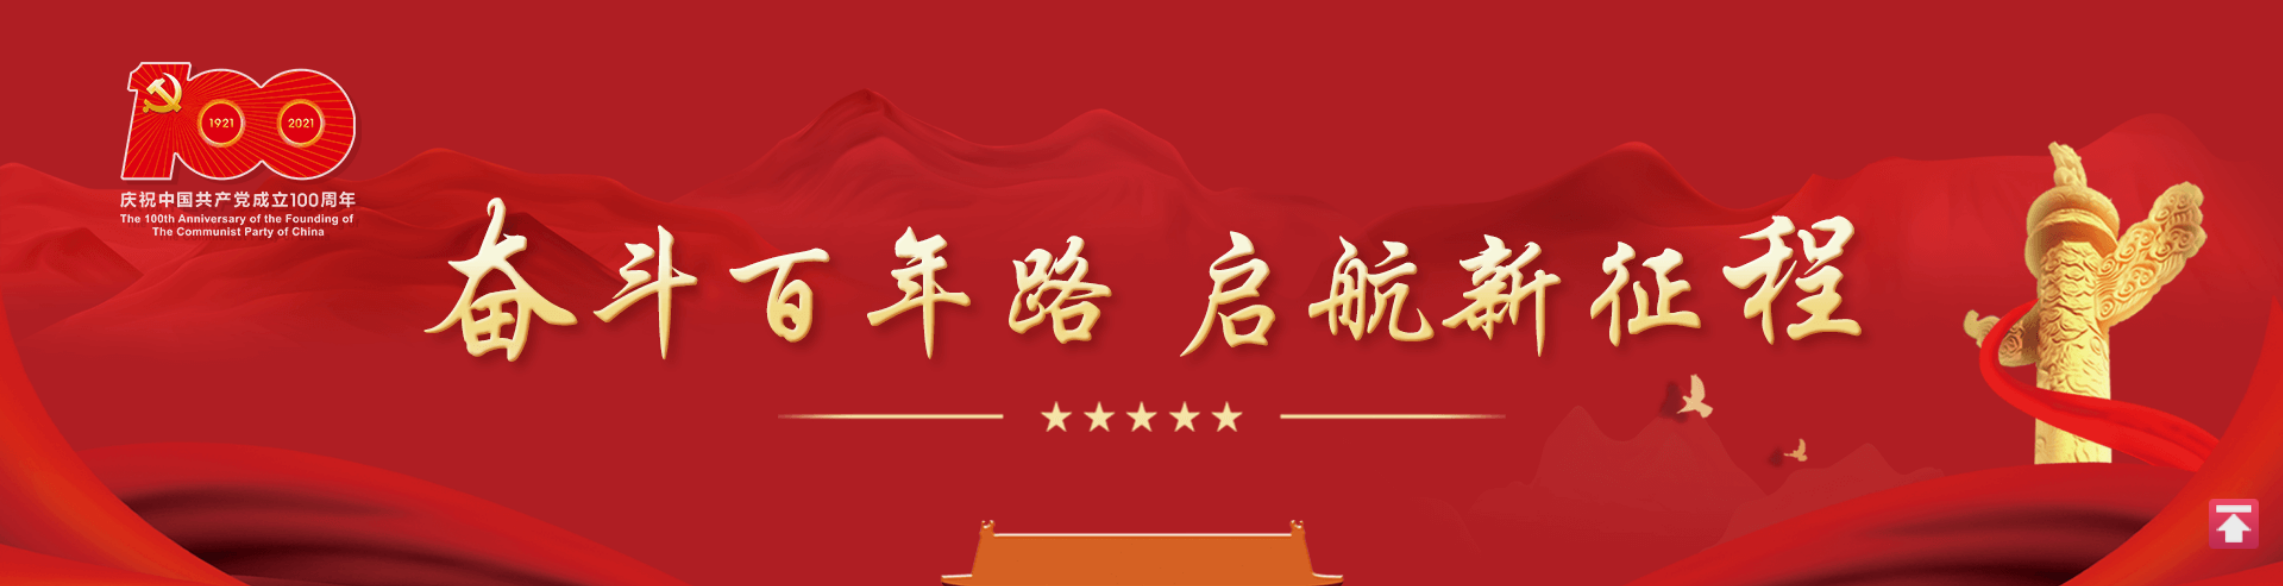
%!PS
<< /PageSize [2283 586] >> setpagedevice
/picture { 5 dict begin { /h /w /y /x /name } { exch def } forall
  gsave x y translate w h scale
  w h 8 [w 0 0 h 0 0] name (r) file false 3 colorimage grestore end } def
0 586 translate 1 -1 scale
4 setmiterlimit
1 setgray
0 0 2283 586 rectfill
(img1.rgb) 0 0 2283 586 picture
(img2.rgb) 2208 498 51 51 picture
showpage
